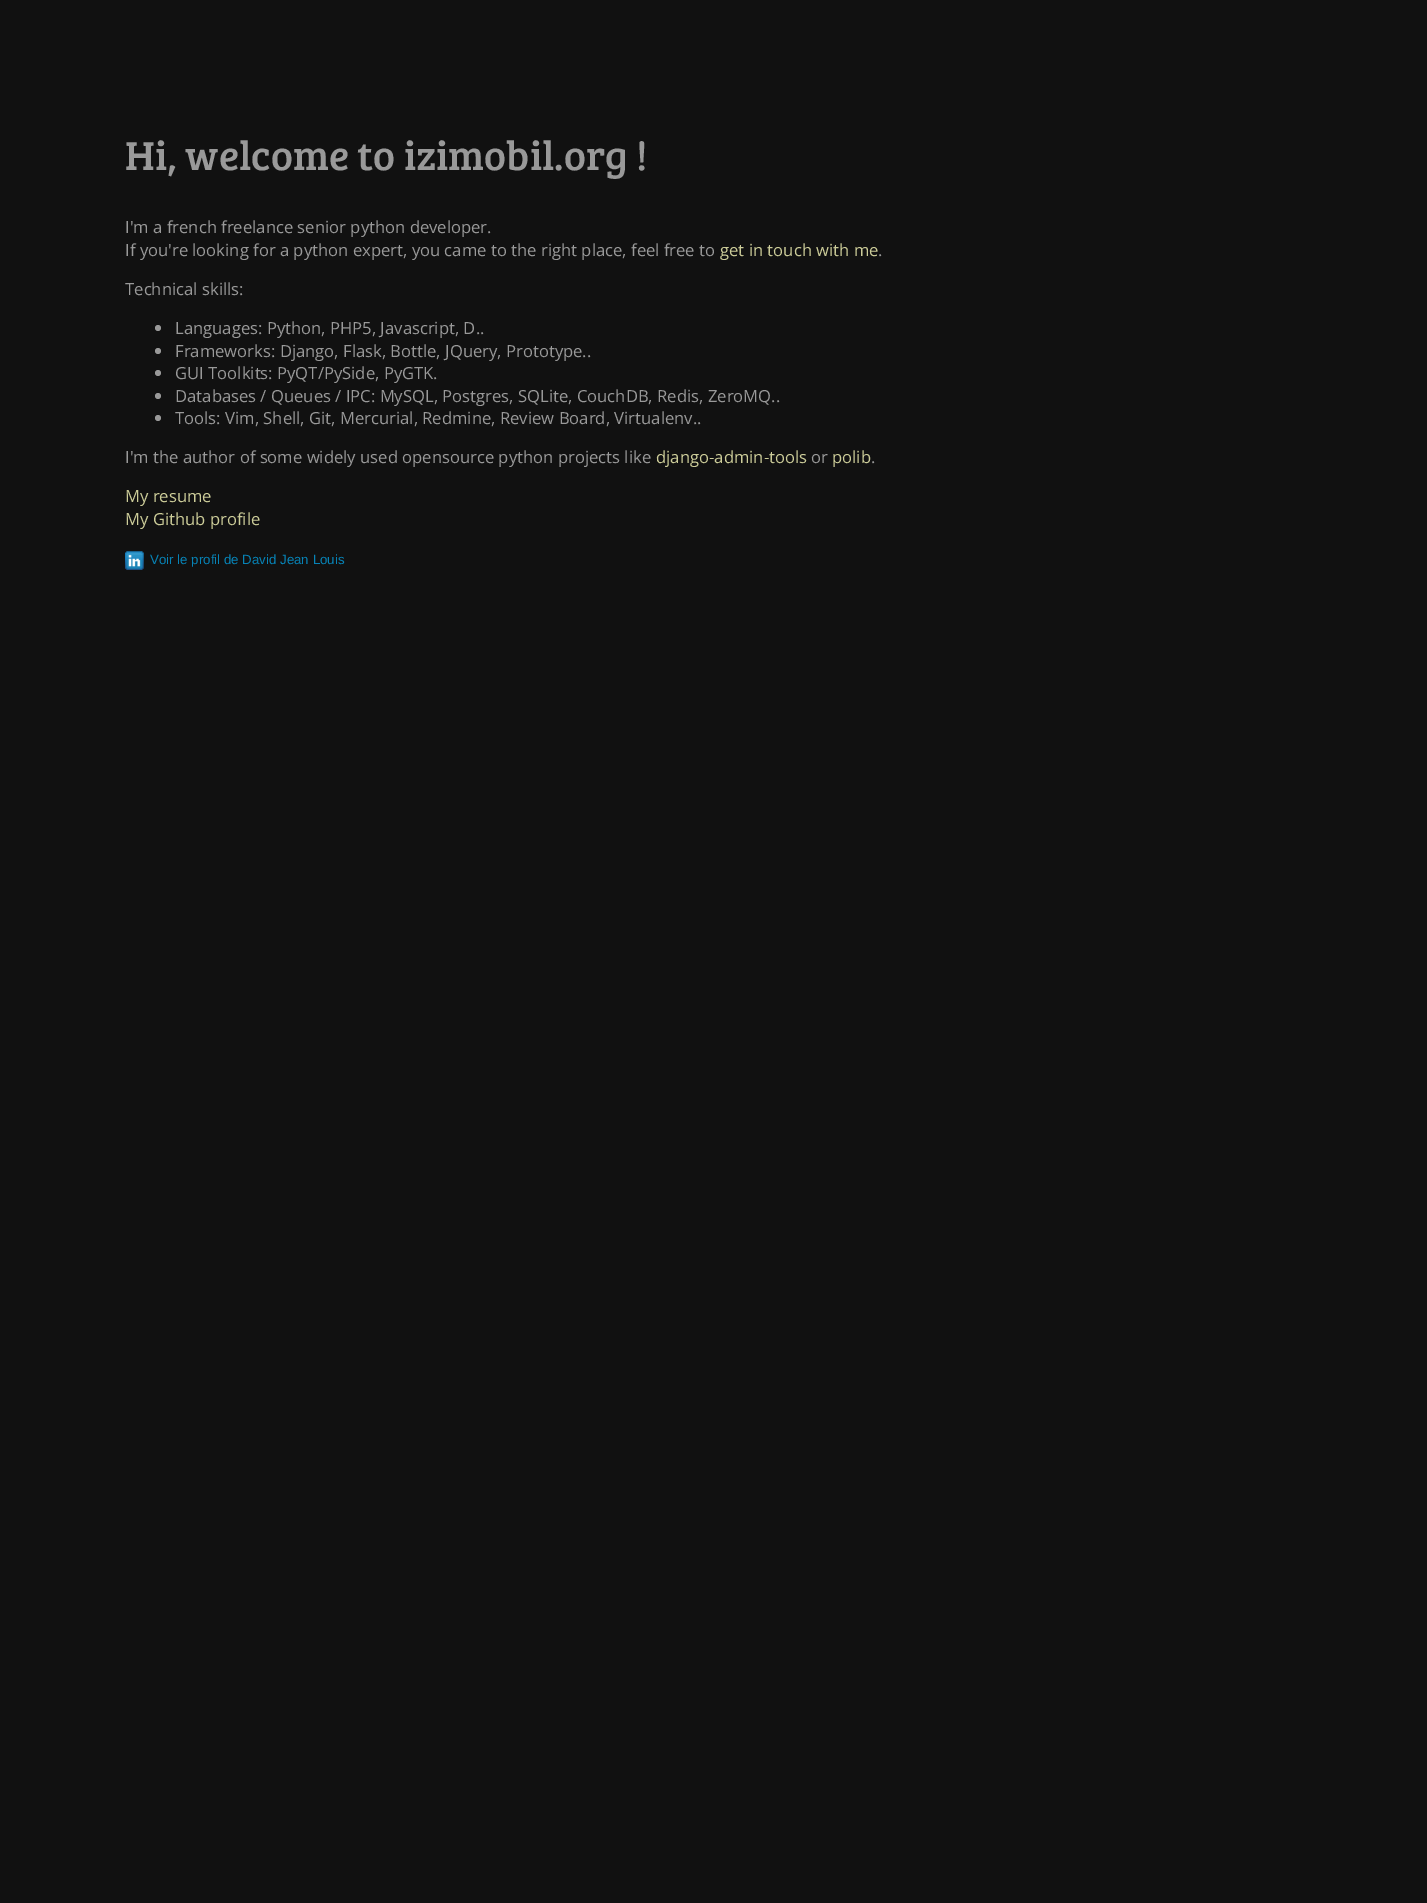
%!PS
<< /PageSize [1427 1903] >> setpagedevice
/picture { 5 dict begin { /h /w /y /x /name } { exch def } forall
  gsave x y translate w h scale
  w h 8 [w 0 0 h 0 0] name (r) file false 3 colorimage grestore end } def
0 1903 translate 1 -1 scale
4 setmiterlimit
0.067 setgray
0 0 1427 1903 rectfill
/BreeSerif-Regular [41.7 0 0 -41.7 0 0] selectfont
0.6 setgray
125 170 moveto (Hi, welcome to izimobil.org !) show
/OpenSans-Regular [16.65 0 0 -16.65 0 0] selectfont
125 233 moveto (I'm a french freelance senior python developer.) show
125 256 moveto (If you're looking for a python expert, you came to the right place, feel free to) show
0.8 0.8 0.6 setrgbcolor
720 256 moveto (get in touch with me) show
0.6 setgray
878 256 moveto (.) show
125 295 moveto (Technical skills:) show
newpath 158 328 3 0 360 arc closepath fill
175 334 moveto (Languages: Python, PHP5, Javascript, D..) show
newpath 158 351 3 0 360 arc closepath fill
175 357 moveto (Frameworks: Django, Flask, Bottle, JQuery, Prototype..) show
newpath 158 373 3 0 360 arc closepath fill
175 379 moveto (GUI Toolkits: PyQT/PySide, PyGTK.) show
newpath 158 396 3 0 360 arc closepath fill
175 402 moveto (Databases / Queues / IPC: MySQL, Postgres, SQLite, CouchDB, Redis, ZeroMQ..) show
newpath 158 418 3 0 360 arc closepath fill
175 424 moveto (Tools: Vim, Shell, Git, Mercurial, Redmine, Review Board, Virtualenv..) show
125 463 moveto (I'm the author of some widely used opensource python projects like) show
0.8 0.8 0.6 setrgbcolor
656 463 moveto (django-admin-tools) show
0.6 setgray
811 463 moveto (or) show
0.8 0.8 0.6 setrgbcolor
832 463 moveto (polib) show
0.6 setgray
871 463 moveto (.) show
0.8 0.8 0.6 setrgbcolor
125 502 moveto (My resume) show
125 525 moveto (My Github profile) show
(img1.rgb) 125 551 19 19 picture
/LiberationSans-Regular [13.3 0 0 -13.3 0 0] selectfont
0.027 0.514 0.714 setrgbcolor
150 564 moveto (Voir le profil de David Jean Louis) show
showpage
